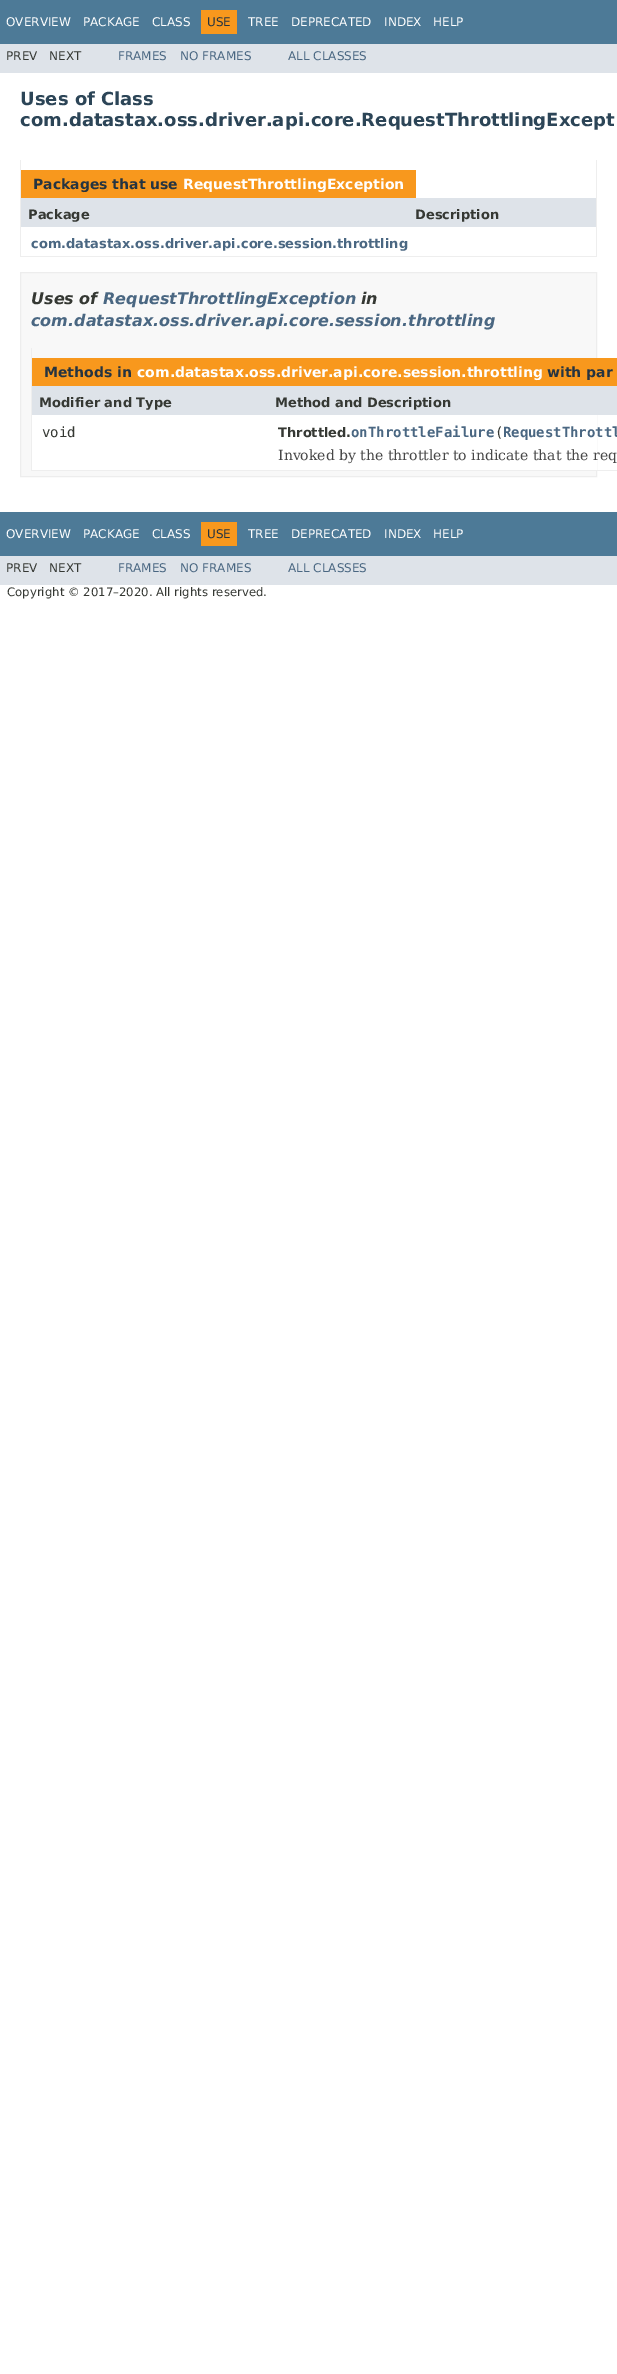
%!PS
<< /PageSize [617 2374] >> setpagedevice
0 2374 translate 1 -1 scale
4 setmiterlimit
1 setgray
0 0 617 2374 rectfill
0.302 0.478 0.592 setrgbcolor
0 0 617 44 rectfill
/DejaVuSans-Regular [12 0 0 -12 0 0] selectfont
1 setgray
6 26 moveto (OVERVIEW) show
83 26 moveto (PACKAGE) show
152 26 moveto (CLASS) show
0.973 0.596 0.114 setrgbcolor
201 10 36 24 rectfill
0.145 0.204 0.255 setrgbcolor
207 26 moveto (USE) show
1 setgray
248 26 moveto (TREE) show
291 26 moveto (DEPRECATED) show
384 26 moveto (INDEX) show
433 26 moveto (HELP) show
0.871 0.89 0.914 setrgbcolor
0 44 617 29 rectfill
0.208 0.22 0.2 setrgbcolor
6 60 moveto (PREV) show
49 60 moveto (NEXT) show
0.29 0.404 0.51 setrgbcolor
118 60 moveto (FRAMES) show
180 60 moveto (NO FRAMES) show
288 60 moveto (ALL CLASSES) show
/DejaVuSans-Bold [18 0 0 -18 0 0] selectfont
0.173 0.271 0.341 setrgbcolor
20 105 moveto (Uses of Class) show
20 126 moveto (com.datastax.oss.driver.api.core.RequestThrottlingExcept) show
0.933 setgray
596 160 1 97 rectfill
20 256 577 1 rectfill
20 160 1 97 rectfill
0.973 0.596 0.114 setrgbcolor
21 170 395 28 rectfill
/DejaVuSans-Bold [14 0 0 -14 0 0] selectfont
0.145 0.204 0.255 setrgbcolor
33 189 moveto (Packages that use) show
1 setgray
183 189 moveto (RequestThrottlingException) show
0.871 0.89 0.914 setrgbcolor
21 198 575 29 rectfill
/DejaVuSans-Bold [13 0 0 -13 0 0] selectfont
0.208 0.22 0.2 setrgbcolor
28 219 moveto (Package) show
415 219 moveto (Description) show
0.29 0.404 0.51 setrgbcolor
31 248 moveto (com.datastax.oss.driver.api.core.session.throttling) show
0.973 setgray
newpath 20.5 272.5 moveto 596.5 272.5 lineto 596.5 476.5 lineto 20.5 476.5 lineto closepath gsave fill grestore
0.929 setgray
stroke
/DejaVuSans-BoldItalic [16 0 0 -16 0 0] selectfont
0.208 0.22 0.2 setrgbcolor
31 304 moveto (Uses of) show
0.29 0.404 0.51 setrgbcolor
103 304 moveto (RequestThrottlingException) show
0.208 0.22 0.2 setrgbcolor
361 304 moveto (in) show
0.29 0.404 0.51 setrgbcolor
31 326 moveto (com.datastax.oss.driver.api.core.session.throttling) show
0.933 setgray
31 470 586 1 rectfill
31 348 1 123 rectfill
0.973 0.596 0.114 setrgbcolor
32 358 585 28 rectfill
/DejaVuSans-Bold [14 0 0 -14 0 0] selectfont
0.145 0.204 0.255 setrgbcolor
44 377 moveto (Methods in) show
1 setgray
137 377 moveto (com.datastax.oss.driver.api.core.session.throttling) show
0.145 0.204 0.255 setrgbcolor
547 377 moveto (with par) show
0.871 0.89 0.914 setrgbcolor
32 386 585 29 rectfill
/DejaVuSans-Bold [13 0 0 -13 0 0] selectfont
0.208 0.22 0.2 setrgbcolor
39 407 moveto (Modifier and Type) show
275 407 moveto (Method and Description) show
1 setgray
32 415 565 55 rectfill
/DejaVuSansMono-Regular [14 0 0 -14 0 0] selectfont
0.208 0.22 0.2 setrgbcolor
42 437 moveto (void) show
/DejaVuSansMono-Bold [14 0 0 -14 0 0] selectfont
0.29 0.404 0.51 setrgbcolor
351 437 moveto (onThrottleFailure RequestThrottl) show
/DejaVuSans-Bold [13 0 0 -13 0 0] selectfont
0.208 0.22 0.2 setrgbcolor
278 437 moveto (Throttled.) show
/DejaVuSansMono-Regular [14 0 0 -14 0 0] selectfont
495 437 moveto (\() show
/DejaVuSerif-Regular [14 0 0 -14 0 0] selectfont
0.278 setgray
278 460 moveto (Invoked by the throttler to indicate that the req) show
0.302 0.478 0.592 setrgbcolor
0 512 617 44 rectfill
/DejaVuSans-Regular [12 0 0 -12 0 0] selectfont
1 setgray
6 538 moveto (OVERVIEW) show
83 538 moveto (PACKAGE) show
152 538 moveto (CLASS) show
0.973 0.596 0.114 setrgbcolor
201 522 36 24 rectfill
0.145 0.204 0.255 setrgbcolor
207 538 moveto (USE) show
1 setgray
248 538 moveto (TREE) show
291 538 moveto (DEPRECATED) show
384 538 moveto (INDEX) show
433 538 moveto (HELP) show
0.871 0.89 0.914 setrgbcolor
0 556 617 29 rectfill
0.208 0.22 0.2 setrgbcolor
6 572 moveto (PREV) show
49 572 moveto (NEXT) show
0.29 0.404 0.51 setrgbcolor
118 572 moveto (FRAMES) show
180 572 moveto (NO FRAMES) show
288 572 moveto (ALL CLASSES) show
/DejaVuSans-Regular [11.7 0 0 -11.7 0 0] selectfont
0.208 0.22 0.2 setrgbcolor
7 596 moveto (Copyright © 2017–2020. All rights reserved.) show
showpage
